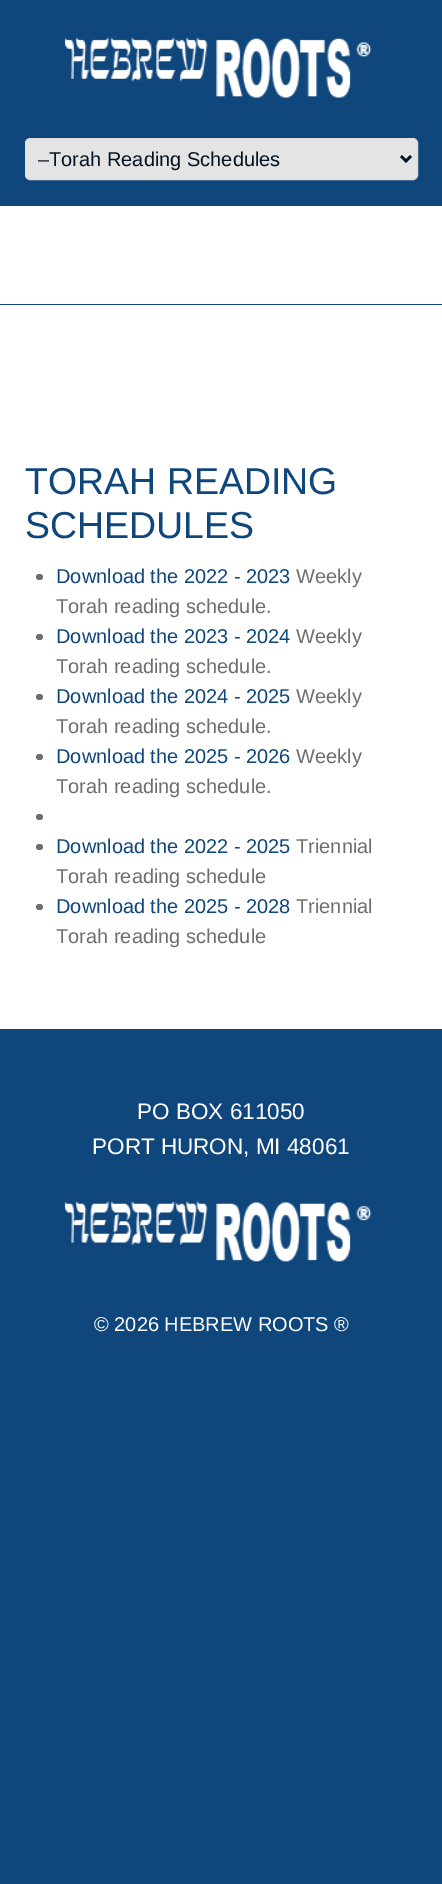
%!PS
<< /PageSize [442 1884] >> setpagedevice
/roundrect { 5 dict begin { /r /h /w /y /x } { exch def } forall
  x r add y moveto x w add y 2 copy h add r arct x w add y h add x 1 index r arct
  x y h add x y r arct x y 2 copy exch w add exch r arct closepath end } def
/picture { 5 dict begin { /h /w /y /x /name } { exch def } forall
  gsave x y translate w h scale
  w h 8 [w 0 0 h 0 0] name (r) file false 3 colorimage grestore end } def
0 1884 translate 1 -1 scale
4 setmiterlimit
0.059 0.275 0.486 setrgbcolor
0 0 442 1884 rectfill
(img1.rgb) 64 37 308 61 picture
0.894 setgray
25.5 138.5 392 41 4.5 roundrect gsave fill grestore
0.867 setgray
stroke
0.016 0.075 0.129 setrgbcolor
2.5 setlinewidth
newpath 401 156 moveto 406 161 lineto 411 156 lineto stroke
/LiberationSans-Regular [20 0 0 -20 0 0] selectfont
38 166 moveto (–Torah Reading Schedules) show
1 setgray
0 206 442 823 rectfill
0.059 0.275 0.486 setrgbcolor
0 304 442 1 rectfill
/LiberationSans-Regular [37.5 0 0 -37.5 0 0] selectfont
25 494 moveto (TORAH READING) show
25 538 moveto (SCHEDULES) show
0.431 setgray
36 574 7 6 3 roundrect fill
/LiberationSans-Regular [20 0 0 -20 0 0] selectfont
0.059 0.275 0.486 setrgbcolor
56 583 moveto (Download the 2022 - 2023) show
0.431 setgray
296 583 moveto (Weekly) show
56 613 moveto (Torah reading schedule.) show
36 634 7 6 3 roundrect fill
0.059 0.275 0.486 setrgbcolor
56 643 moveto (Download the 2023 - 2024) show
0.431 setgray
296 643 moveto (Weekly) show
56 673 moveto (Torah reading schedule.) show
36 694 7 6 3 roundrect fill
0.059 0.275 0.486 setrgbcolor
56 703 moveto (Download the 2024 - 2025) show
0.431 setgray
296 703 moveto (Weekly) show
56 733 moveto (Torah reading schedule.) show
36 754 7 6 3 roundrect fill
0.059 0.275 0.486 setrgbcolor
56 763 moveto (Download the 2025 - 2026) show
0.431 setgray
296 763 moveto (Weekly) show
56 793 moveto (Torah reading schedule.) show
36 814 7 6 3 roundrect fill
36 844 7 6 3 roundrect fill
0.059 0.275 0.486 setrgbcolor
56 853 moveto (Download the 2022 - 2025) show
0.431 setgray
296 853 moveto (Triennial) show
56 883 moveto (Torah reading schedule) show
36 904 7 6 3 roundrect fill
0.059 0.275 0.486 setrgbcolor
56 913 moveto (Download the 2025 - 2028) show
0.431 setgray
296 913 moveto (Triennial) show
56 943 moveto (Torah reading schedule) show
/LiberationSans-Regular [22.5 0 0 -22.5 0 0] selectfont
1 setgray
137 1119 moveto (PO BOX 611050) show
92 1154 moveto (PORT HURON, MI 48061) show
(img2.rgb) 64 1201 308 61 picture
/LiberationSans-Regular [20 0 0 -20 0 0] selectfont
94 1331 moveto (© 2026 HEBREW ROOTS ®) show
showpage
